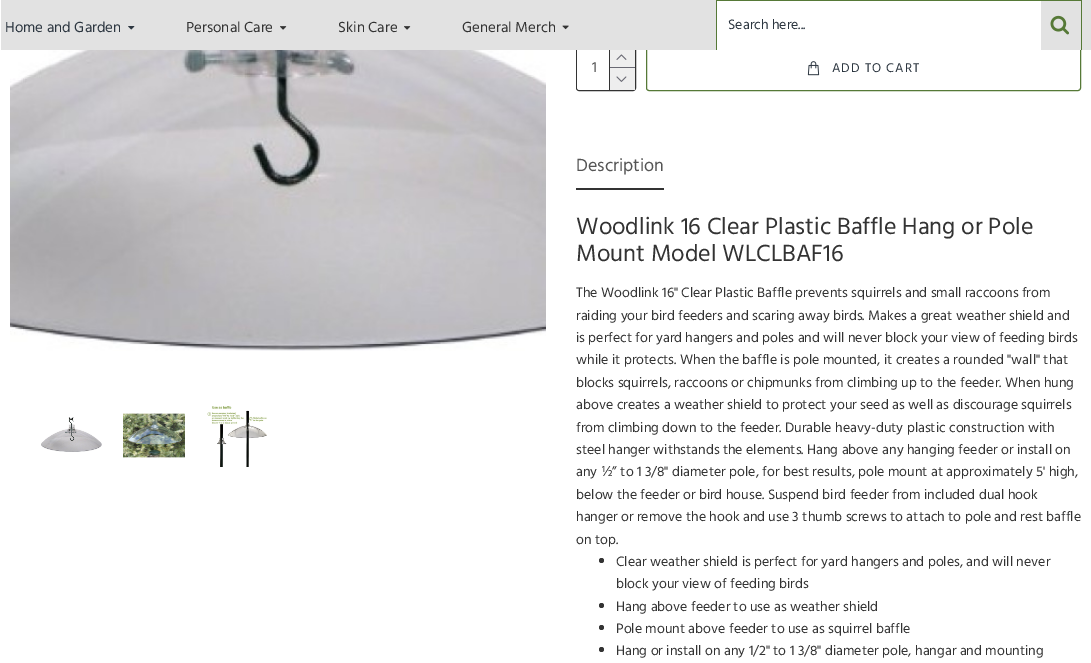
%!PS
<< /PageSize [1091 663] >> setpagedevice
/roundrect { 5 dict begin { /r /h /w /y /x } { exch def } forall
  x r add y moveto x w add y 2 copy h add r arct x w add y h add x 1 index r arct
  x y h add x y r arct x y 2 copy exch w add exch r arct closepath end } def
/picture { 5 dict begin { /h /w /y /x /name } { exch def } forall
  gsave x y translate w h scale
  w h 8 [w 0 0 h 0 0] name (r) file false 3 colorimage grestore end } def
0 663 translate 1 -1 scale
4 setmiterlimit
1 setgray
0 0 1091 663 rectfill
0.2 setgray
576.5 46.5 59 44 2.5 roundrect stroke
1 setgray
577 47 58 43 3 roundrect fill
0.2 setgray
609 47 1 43 rectfill
0.337 0.475 0.216 setrgbcolor
646.5 46.5 434 44 2.5 roundrect stroke
0.886 setgray
1 0 1090 50 rectfill
/Hind-Regular [15 0 0 -15 0 0] selectfont
0.173 0.212 0.251 setrgbcolor
5 32 moveto (Home and Garden) show
(img1.rgb) 128 26 7 4 picture
0.2 setgray
186 32 moveto (Personal Care) show
(img2.rgb) 280 26 7 4 picture
338 32 moveto (Skin Care) show
(img2.rgb) 404 26 7 4 picture
462 32 moveto (General Merch) show
(img3.rgb) 562 25 7 5 picture
0.337 0.475 0.216 setrgbcolor
716 0 366 1 rectfill
1081 0 1 50 rectfill
716 0 1 50 rectfill
1 setgray
717 1 324 49 rectfill
/Hind-Regular [14 0 0 -14 0 0] selectfont
0.173 0.212 0.251 setrgbcolor
728 29 moveto (Search here...) show
(img4.rgb) 1050 15 19 20 picture
(img5.rgb) 10 50 536 301 picture
(img6.rgb) 41 417 61 35 picture
(img7.rgb) 123 413 62 45 picture
(img8.rgb) 207 406 60 61 picture
/Hind-Regular [15 0 0 -15 0 0] selectfont
0.333 setgray
592 72 moveto (1) show
0.933 setgray
610 50 25 17 rectfill
0.412 0.412 0.451 setrgbcolor
610 67 25 1 rectfill
(img9.rgb) 616 54 11 6 picture
0.933 setgray
610 68 25 22 rectfill
(img10.rgb) 616 76 11 6 picture
(img11.rgb) 807 61 13 15 picture
/Hind-Regular [13 0 0 -13 0 0] selectfont
0.173 0.212 0.251 setrgbcolor
832 72 moveto 1 0 (ADD TO CART) ashow
0.2 setgray
576 188 88 2 rectfill
/Hind-Regular [18 0 0 -18 0 0] selectfont
0.333 setgray
576 171 moveto (Description) show
/Hind-Regular [24 0 0 -24 0 0] selectfont
0.2 setgray
576 234 moveto (Woodlink 16 Clear Plastic Baffle Hang or Pole) show
576 261 moveto (Mount Model WLCLBAF16) show
/Hind-Regular [14 0 0 -14 0 0] selectfont
576 297 moveto (The Woodlink 16" Clear Plastic Baffle prevents squirrels and small raccoons from) show
576 320 moveto (raiding your bird feeders and scaring away birds. Makes a great weather shield and) show
576 342 moveto (is perfect for yard hangers and poles and will never block your view of feeding birds) show
576 364 moveto (while it protects. When the baffle is pole mounted, it creates a rounded "wall" that) show
576 387 moveto (blocks squirrels, raccoons or chipmunks from climbing up to the feeder. When hung) show
576 409 moveto (above creates a weather shield to protect your seed as well as discourage squirrels) show
576 432 moveto (from climbing down to the feeder. Durable heavy-duty plastic construction with) show
576 454 moveto (steel hanger withstands the elements. Hang above any hanging feeder or install on) show
576 476 moveto (any ½” to 1 3/8" diameter pole, for best results, pole mount at approximately 5' high,) show
576 499 moveto (below the feeder or bird house. Suspend bird feeder from included dual hook) show
576 521 moveto (hanger or remove the hook and use 3 thumb screws to attach to pole and rest baffle) show
576 544 moveto (on top.) show
newpath 601.5 560.5 2.5 0 360 arc closepath fill
616 566 moveto (Clear weather shield is perfect for yard hangers and poles, and will never) show
616 588 moveto (block your view of feeding birds) show
newpath 601.5 605.5 2.5 0 360 arc closepath fill
616 611 moveto (Hang above feeder to use as weather shield) show
newpath 601.5 627.5 2.5 0 360 arc closepath fill
616 633 moveto (Pole mount above feeder to use as squirrel baffle) show
newpath 601.5 649.5 2.5 0 360 arc closepath fill
616 655 moveto (Hang or install on any 1/2" to 1 3/8" diameter pole, hangar and mounting) show
showpage
